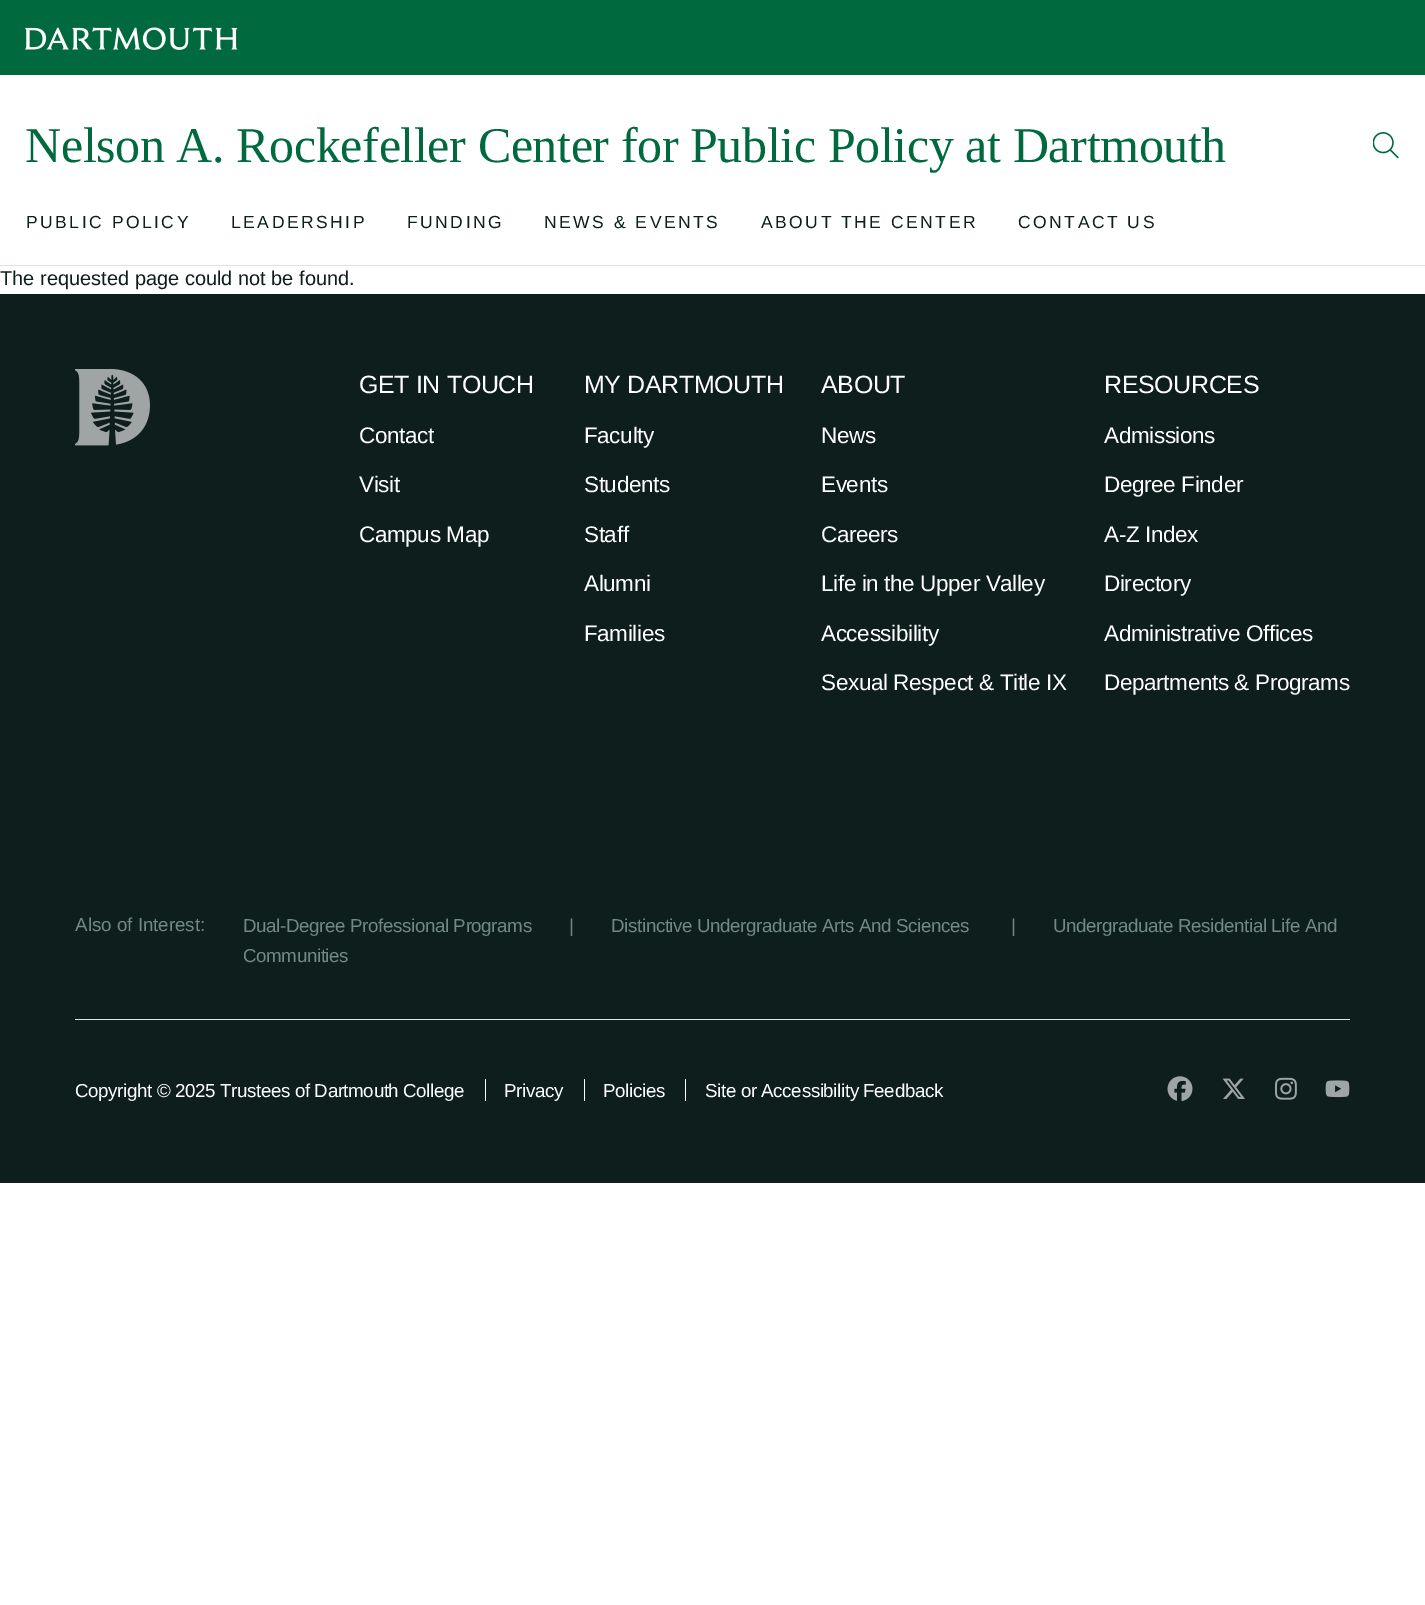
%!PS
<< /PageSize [1425 1605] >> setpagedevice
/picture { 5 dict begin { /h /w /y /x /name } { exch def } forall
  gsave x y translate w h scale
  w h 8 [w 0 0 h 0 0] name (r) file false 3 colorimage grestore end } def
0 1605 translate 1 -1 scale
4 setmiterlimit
1 setgray
0 0 1425 1605 rectfill
0.886 setgray
0 265 1425 1 rectfill
0 0.412 0.243 setrgbcolor
0 0 1425 75 rectfill
(img1.rgb) 25 27 213 23 picture
/LiberationSerif-Regular [50 0 0 -50 0 0] selectfont
25 162 moveto -0.38 0 (Nelson A. Rockefeller Center for Public Policy at Dartmouth) ashow
(img2.rgb) 1373 132 26 27 picture
/LiberationSans-Regular [17.5 0 0 -17.5 0 0] selectfont
0.051 0.118 0.11 setrgbcolor
26 228 moveto 2.5 0 (PUBLIC POLICY) ashow
231 228 moveto 2.5 0 (LEADERSHIP) ashow
407 228 moveto 2.5 0 (FUNDING) ashow
544 228 moveto 2.5 0 (NEWS & EVENTS) ashow
761 228 moveto 2.5 0 (ABOUT THE CENTER) ashow
1018 228 moveto 2.5 0 (CONTACT US) ashow
/LiberationSans-Regular [20 0 0 -20 0 0] selectfont
0 285 moveto (The requested page could not be found.) show
0 294 1425 889 rectfill
(img3.rgb) 75 369 75 77 picture
/LiberationSans-Regular [25 0 0 -25 0 0] selectfont
1 setgray
359 393 moveto -0.38 0 (GET IN TOUCH) ashow
/LiberationSans-Regular [22.5 0 0 -22.5 0 0] selectfont
359 443 moveto -0.38 0 (Contact) ashow
359 492 moveto -0.38 0 (Visit) ashow
359 542 moveto -0.38 0 (Campus Map) ashow
/LiberationSans-Regular [25 0 0 -25 0 0] selectfont
584 393 moveto -0.38 0 (MY DARTMOUTH) ashow
/LiberationSans-Regular [22.5 0 0 -22.5 0 0] selectfont
584 443 moveto -0.38 0 (Faculty) ashow
584 492 moveto -0.38 0 (Students) ashow
584 542 moveto -0.38 0 (Staff) ashow
584 591 moveto -0.38 0 (Alumni) ashow
584 641 moveto -0.38 0 (Families) ashow
/LiberationSans-Regular [25 0 0 -25 0 0] selectfont
821 393 moveto -0.38 0 (ABOUT) ashow
/LiberationSans-Regular [22.5 0 0 -22.5 0 0] selectfont
821 443 moveto -0.38 0 (News) ashow
821 492 moveto -0.38 0 (Events) ashow
821 542 moveto -0.38 0 (Careers) ashow
821 591 moveto -0.38 0 (Life in the Upper Valley) ashow
821 641 moveto -0.38 0 (Accessibility) ashow
821 690 moveto -0.38 0 (Sexual Respect & Title IX) ashow
/LiberationSans-Regular [25 0 0 -25 0 0] selectfont
1104 393 moveto -0.38 0 (RESOURCES) ashow
/LiberationSans-Regular [22.5 0 0 -22.5 0 0] selectfont
1104 443 moveto -0.38 0 (Admissions) ashow
1104 492 moveto -0.38 0 (Degree Finder) ashow
1104 542 moveto -0.38 0 (A-Z Index) ashow
1104 591 moveto -0.38 0 (Directory) ashow
1104 641 moveto -0.38 0 (Administrative Offices) ashow
1104 690 moveto -0.38 0 (Departments & Programs) ashow
/LiberationSans-Regular [18.75 0 0 -18.75 0 0] selectfont
0.447 0.533 0.518 setrgbcolor
75 931 moveto (Also of Interest:) show
243 932 moveto -0.38 0 (Dual-Degree Professional Programs) ashow
569 932 moveto -0.38 0 (|) ashow
611 932 moveto -0.38 0 (Distinctive Undergraduate Arts And Sciences) ashow
1011 932 moveto -0.38 0 (|) ashow
1053 932 moveto -0.38 0 (Undergraduate Residential Life And) ashow
243 962 moveto -0.38 0 (Communities) ashow
0.886 setgray
75 1019 1275 1 rectfill
1 setgray
75 1097 moveto -0.38 0 (Copyright © 2025 Trustees of Dartmouth College) ashow
485 1079 1 22 rectfill
504 1097 moveto -0.38 0 (Privacy) ashow
584 1079 1 22 rectfill
603 1097 moveto -0.38 0 (Policies) ashow
685 1079 1 22 rectfill
705 1097 moveto -0.38 0 (Site or Accessibility Feedback) ashow
(img4.rgb) 1167 1076 26 26 picture
(img5.rgb) 1222 1078 23 21 picture
(img6.rgb) 1275 1077 22 23 picture
(img7.rgb) 1325 1080 25 18 picture
showpage
